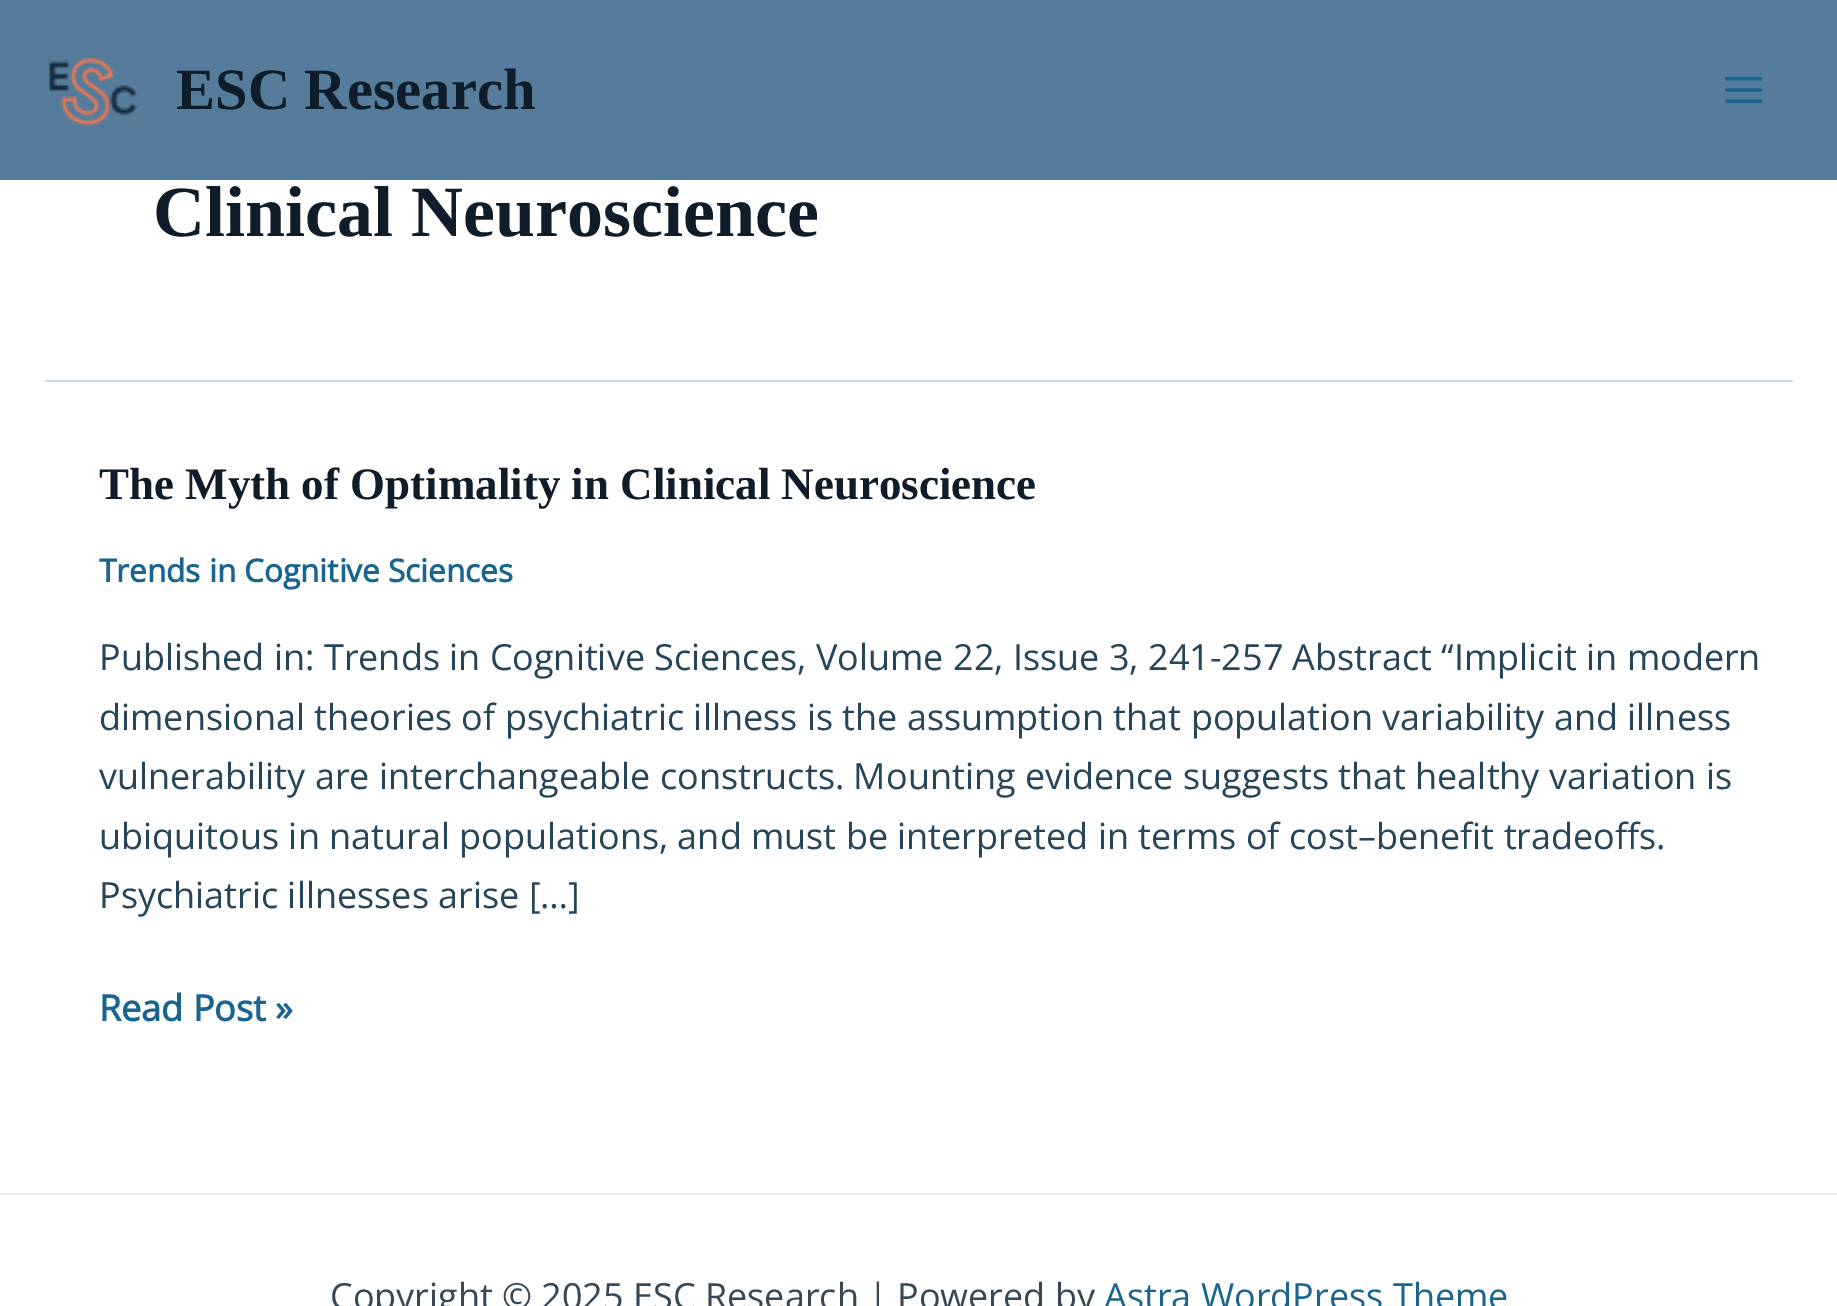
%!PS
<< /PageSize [1837 1306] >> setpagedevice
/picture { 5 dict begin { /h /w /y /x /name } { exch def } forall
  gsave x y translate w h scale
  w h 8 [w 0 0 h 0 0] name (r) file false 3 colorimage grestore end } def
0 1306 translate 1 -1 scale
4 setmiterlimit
1 setgray
0 0 1837 1306 rectfill
0.333 0.486 0.604 setrgbcolor
0 0 1837 180 rectfill
(img1.rgb) 49 58 89 69 picture
/LiberationSerif-Bold [58.5 0 0 -58.5 0 0] selectfont
0.059 0.11 0.161 setrgbcolor
176 109 moveto (ESC Research) show
(img2.rgb) 1725 76 38 28 picture
0.82 0.855 0.898 setrgbcolor
45 380 1748 2 rectfill
/LiberationSerif-Bold [72 0 0 -72 0 0] selectfont
0.059 0.11 0.161 setrgbcolor
153 236 moveto (Clinical Neuroscience) show
/LiberationSerif-Bold [45 0 0 -45 0 0] selectfont
99 499 moveto (The Myth of Optimality in Clinical Neuroscience) show
/OpenSans-Bold [31.5 0 0 -31.5 0 0] selectfont
0.102 0.396 0.565 setrgbcolor
99 582 moveto (Trends in Cognitive Sciences) show
/OpenSans-Regular [36 0 0 -36 0 0] selectfont
0.145 0.275 0.353 setrgbcolor
99 670 moveto (Published in: Trends in Cognitive Sciences, Volume 22, Issue 3, 241-257 Abstract “Implicit in modern) show
99 730 moveto (dimensional theories of psychiatric illness is the assumption that population variability and illness) show
99 789 moveto (vulnerability are interchangeable constructs. Mounting evidence suggests that healthy variation is) show
99 849 moveto (ubiquitous in natural populations, and must be interpreted in terms of cost–benefit tradeoffs.) show
99 908 moveto (Psychiatric illnesses arise […]) show
/OpenSans-Bold [36 0 0 -36 0 0] selectfont
0.102 0.396 0.565 setrgbcolor
99 1021 moveto (Read Post ») show
0.918 setgray
0 1193 1837 2 rectfill
/OpenSans-Regular [36 0 0 -36 0 0] selectfont
0.212 0.282 0.337 setrgbcolor
330 1309 moveto (Copyright © 2025 ESC Research | Powered by) show
0.102 0.396 0.565 setrgbcolor
1104 1309 moveto (Astra WordPress Theme) show
showpage
